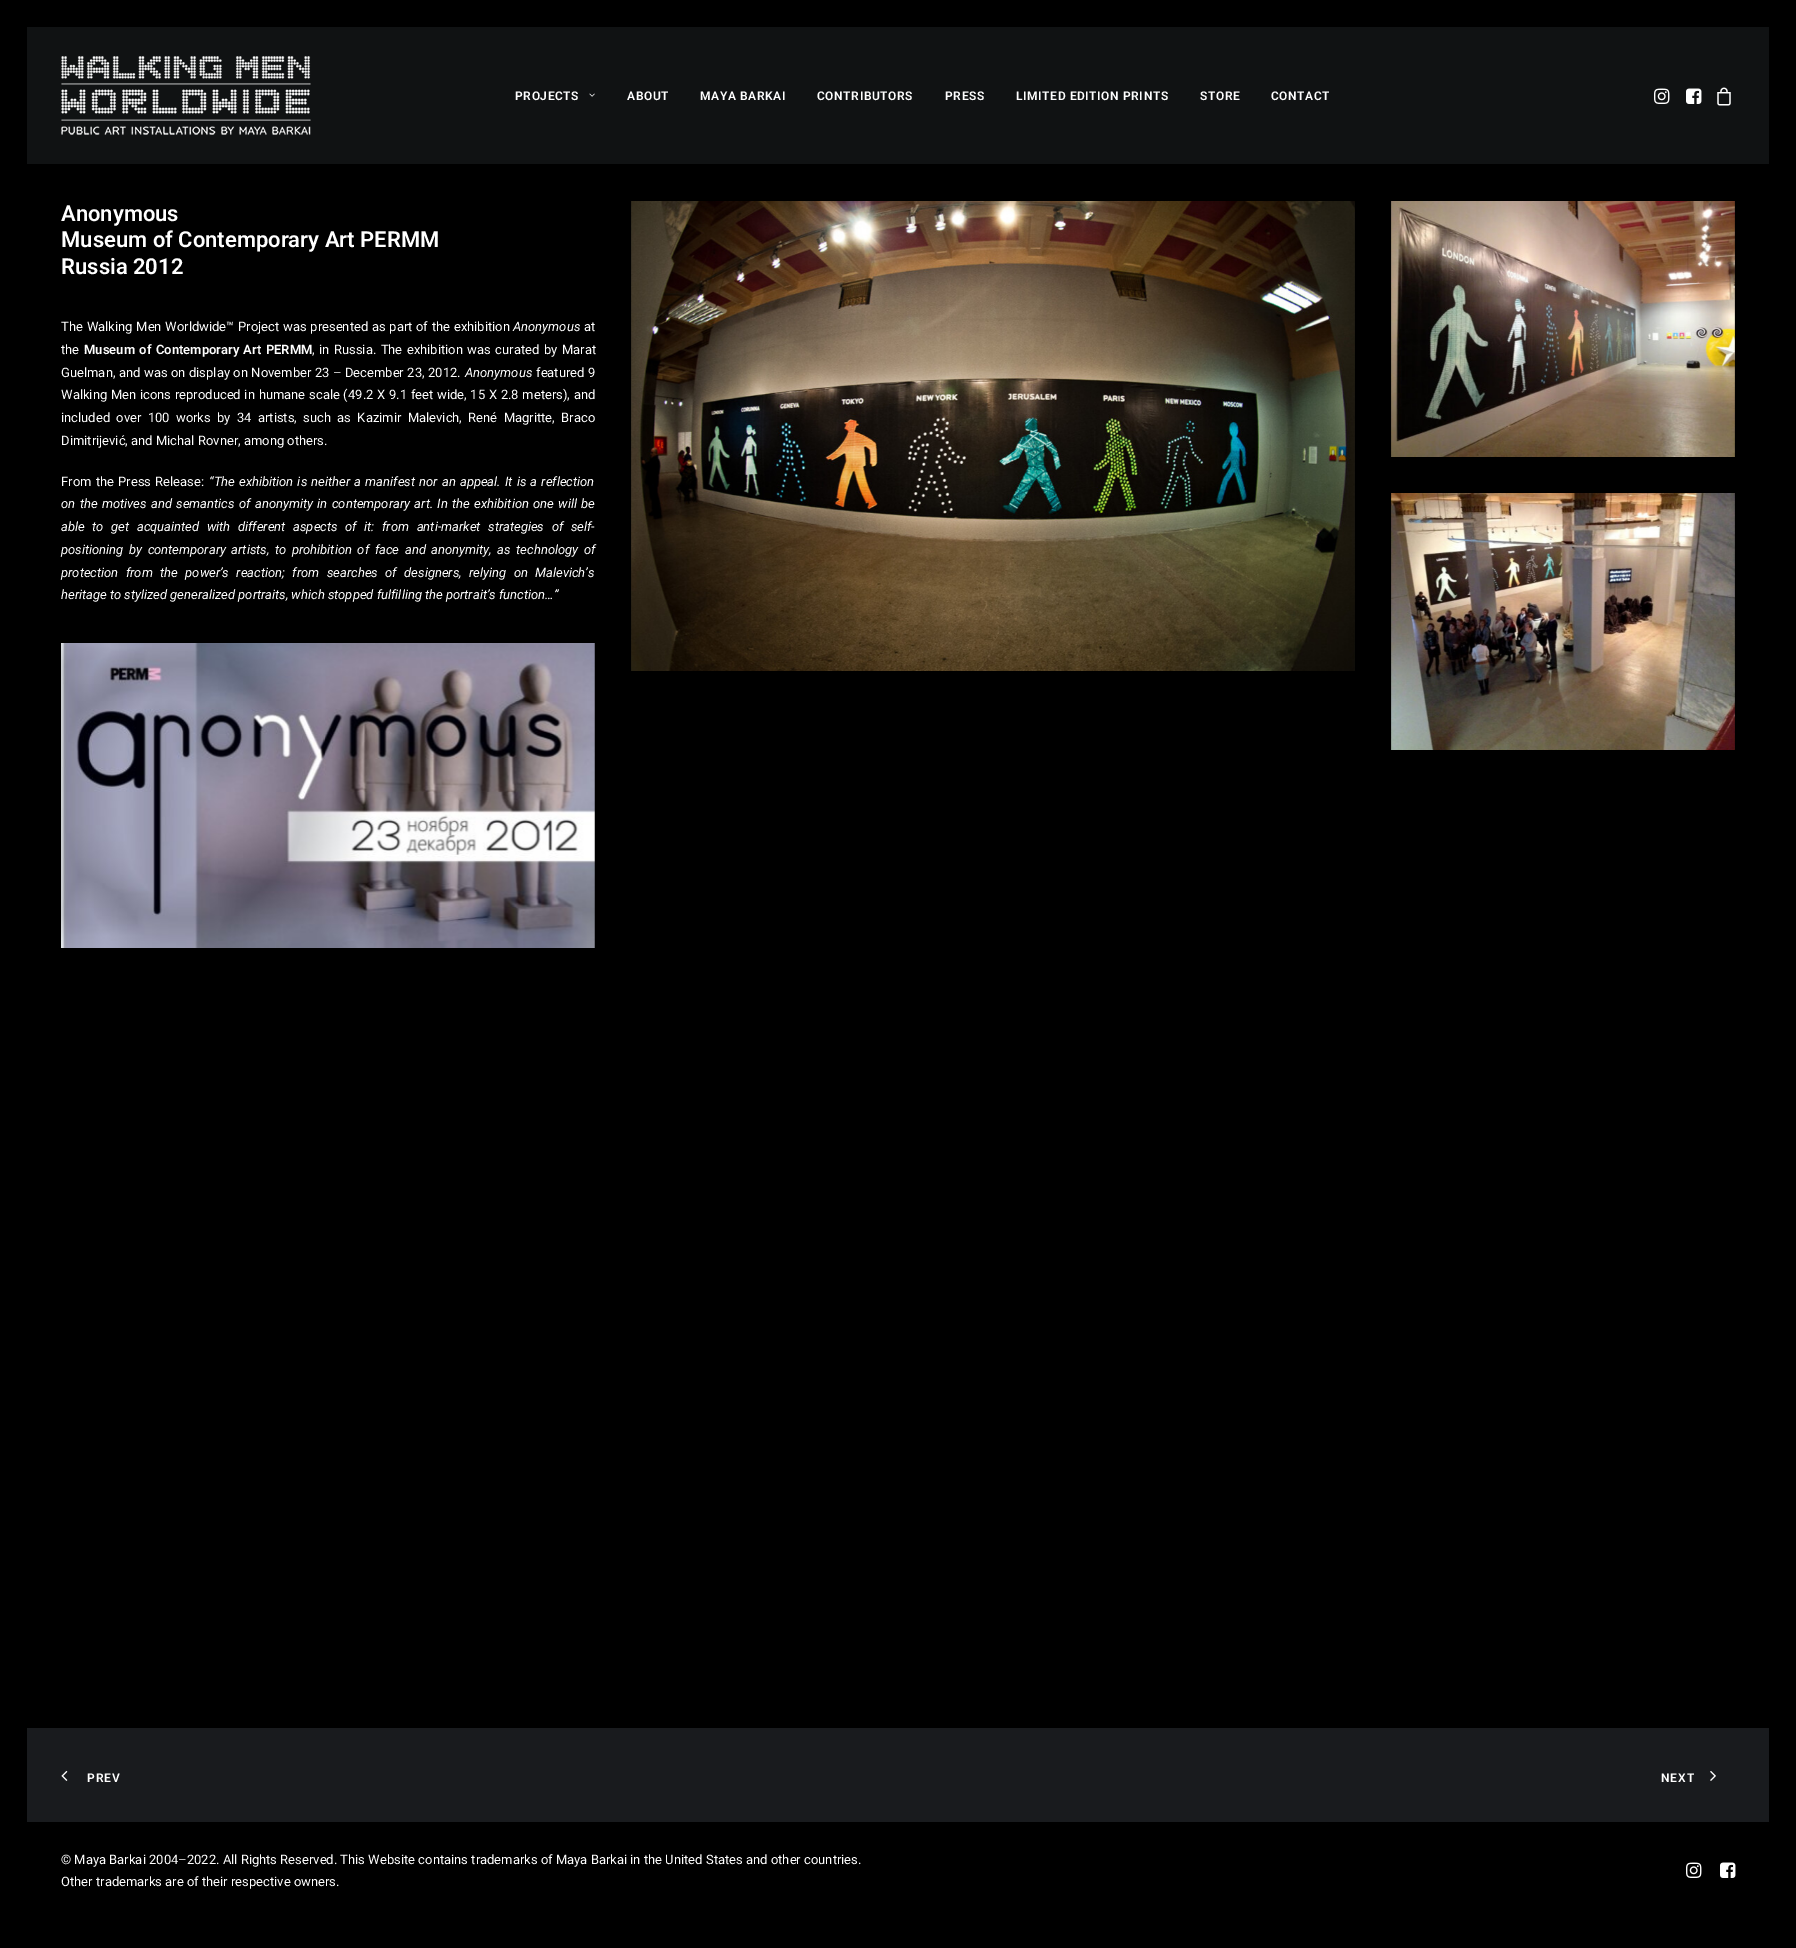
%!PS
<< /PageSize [1796 1948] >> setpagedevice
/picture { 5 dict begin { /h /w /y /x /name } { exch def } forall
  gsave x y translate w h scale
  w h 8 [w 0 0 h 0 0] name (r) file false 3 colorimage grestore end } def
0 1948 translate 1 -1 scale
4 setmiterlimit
0 setgray
0 0 1796 1948 rectfill
0.063 0.071 0.075 setrgbcolor
27 27 1742 137 rectfill
(img1.rgb) 61 56 250 79 picture
/Roboto-SemiBold [12 0 0 -12 0 0] selectfont
1 setgray
515 100 moveto 0.6 0 (PROJECTS) ashow
(img2.rgb) 589 93 6 4 picture
627 100 moveto 0.6 0 (ABOUT) ashow
700 100 moveto 0.6 0 (MAYA BARKAI) ashow
817 100 moveto 0.6 0 (CONTRIBUTORS) ashow
945 100 moveto 0.6 0 (PRESS) ashow
1016 100 moveto 0.6 0 (LIMITED EDITION PRINTS) ashow
1200 100 moveto 0.6 0 (STORE) ashow
1271 100 moveto 0.6 0 (CONTACT) ashow
(img3.rgb) 1654 88 16 16 picture
(img4.rgb) 1686 88 16 16 picture
(img5.rgb) 1717 87 14 19 picture
/Roboto-SemiBold [22 0 0 -22 0 0] selectfont
61 221 moveto (Anonymous) show
61 247 moveto (Museum of Contemporary Art PERMM) show
61 274 moveto (Russia 2012) show
/Roboto-Regular [13 0 0 -13 0 0] selectfont
61 331 moveto 0.5 0 32 (The Walking Men Worldwide™ Project was presented as part of the exhibition) widthshow
/Roboto-Italic [13 0 0 -13 0 0] selectfont
513 331 moveto (Anonymous) show
/Roboto-Regular [13 0 0 -13 0 0] selectfont
584 331 moveto (at) show
61 354 moveto (the) show
/Roboto-SemiBold [13 0 0 -13 0 0] selectfont
84 354 moveto 1.25 0 32 (Museum of Contemporary Art PERMM) widthshow
/Roboto-Regular [13 0 0 -13 0 0] selectfont
312 354 moveto 1.25 0 32 (, in Russia. The exhibition was curated by Marat) widthshow
61 377 moveto 0.25 0 32 (Guelman, and was on display on November 23 – December 23, 2012.) widthshow
/Roboto-Italic [13 0 0 -13 0 0] selectfont
465 377 moveto (Anonymous) show
/Roboto-Regular [13 0 0 -13 0 0] selectfont
536 377 moveto 0.25 0 32 (featured 9) widthshow
61 399 moveto 0.5 0 32 (Walking Men icons reproduced in humane scale \(49.2 X 9.1 feet wide, 15 X 2.8 meters\), and) widthshow
61 422 moveto 3.1 0 32 (included over 100 works by 34 artists, such as Kazimir Malevich, René Magritte, Braco) widthshow
61 445 moveto (Dimitrijević, and Michal Rovner, among others.) show
61 486 moveto 1 0 32 (From the Press Release:) widthshow
/Roboto-Italic [13 0 0 -13 0 0] selectfont
209 486 moveto 1 0 32 (“The exhibition is neither a manifest nor an appeal. It is a reflection) widthshow
61 508 moveto 1.2 0 32 (on the motives and semantics of anonymity in contemporary art. In the exhibition one will be) widthshow
61 531 moveto 4.4 0 32 (able to get acquainted with different aspects of it: from anti-market strategies of self-) widthshow
61 554 moveto 2.4 0 32 (positioning by contemporary artists, to prohibition of face and anonymity, as technology of) widthshow
61 577 moveto 4.25 0 32 (protection from the power’s reaction; from searches of designers, relying on Malevich’s) widthshow
61 599 moveto (heritage to stylized generalized portraits, which stopped fulfilling the portrait’s function…”) show
(img6.rgb) 61 643 534 305 picture
(img7.rgb) 631 201 724 470 picture
(img8.rgb) 1391 201 344 256 picture
(img9.rgb) 1391 493 344 257 picture
0.098 0.106 0.118 setrgbcolor
27 1728 1742 94 rectfill
(img10.rgb) 61 1770 7 11 picture
/Roboto-SemiBold [12 0 0 -12 0 0] selectfont
1 setgray
87 1782 moveto 1 0 (PREV) ashow
1661 1782 moveto 1 0 (NEXT) ashow
(img11.rgb) 1710 1771 6 10 picture
/Roboto-Regular [13 0 0 -13 0 0] selectfont
61 1864 moveto (© Maya Barkai 2004–2022. All Rights Reserved. This Website contains trademarks of Maya Barkai in the United States and other countries.) show
61 1886 moveto (Other trademarks are of their respective owners.) show
(img12.rgb) 1686 1862 16 16 picture
(img13.rgb) 1720 1862 16 16 picture
showpage
